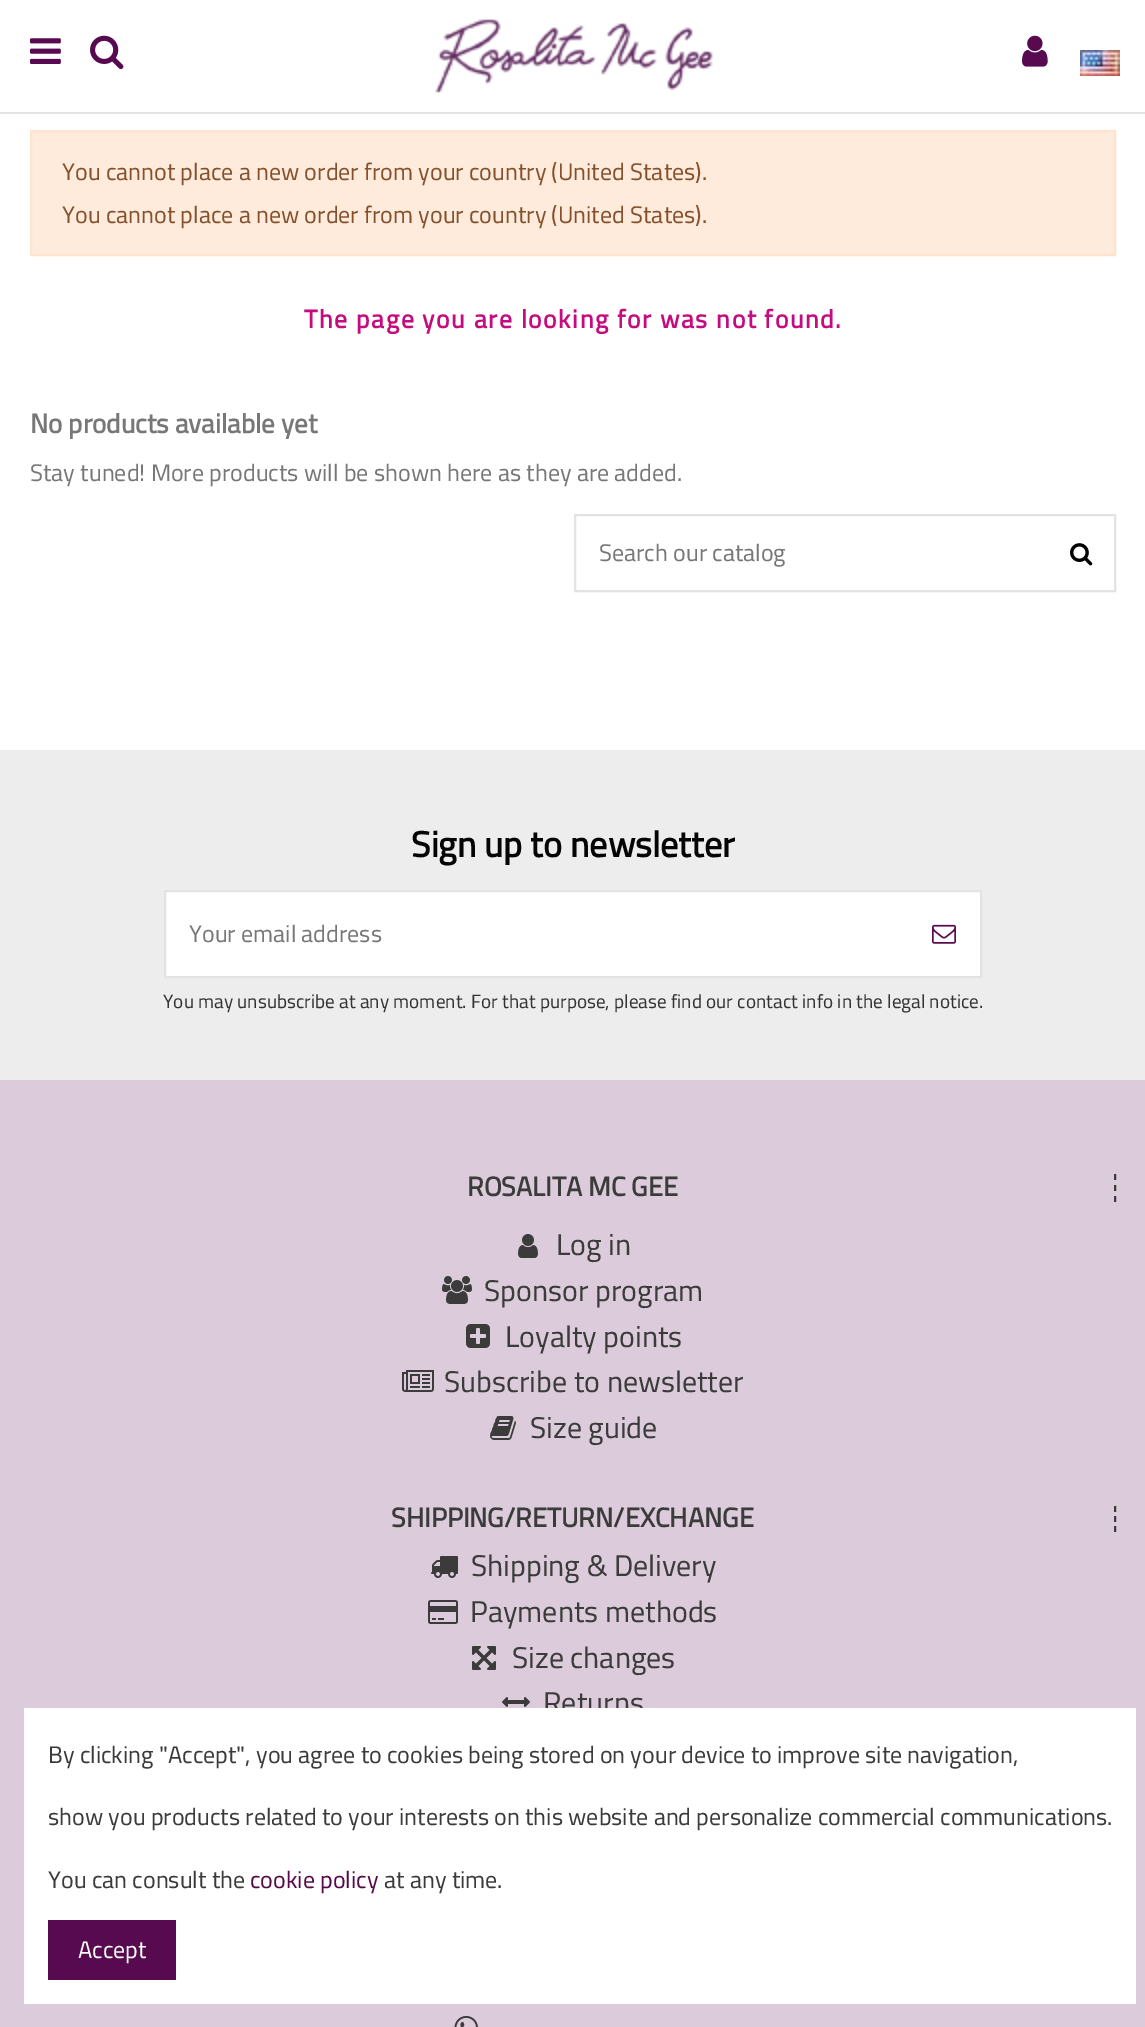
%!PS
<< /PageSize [1145 2027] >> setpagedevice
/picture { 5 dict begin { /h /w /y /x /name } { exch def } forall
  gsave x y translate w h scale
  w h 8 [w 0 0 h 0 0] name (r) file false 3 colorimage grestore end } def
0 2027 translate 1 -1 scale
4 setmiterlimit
1 setgray
0 0 1145 2027 rectfill
0.89 setgray
0 112 1145 2 rectfill
(img1.rgb) 30 38 31 26 picture
(img2.rgb) 90 35 34 35 picture
(img3.rgb) 435 19 278 74 picture
(img4.rgb) 1022 35 26 32 picture
(img5.rgb) 1080 50 40 26 picture
1 0.922 0.863 setrgbcolor
newpath 31 131 moveto 1115 131 lineto 1115 255 lineto 31 255 lineto closepath gsave fill grestore
1 0.89 0.812 setrgbcolor
2 setlinewidth
stroke
/Cairo-Regular [24 0 0 -24 0 0] selectfont
0.522 0.314 0.169 setrgbcolor
62 180 moveto (You cannot place a new order from your country \(United States\).) show
62 223 moveto (You cannot place a new order from your country \(United States\).) show
/Cairo-Bold [25.6 0 0 -25.6 0 0] selectfont
0.773 0.047 0.498 setrgbcolor
304 328 moveto 1.6 0 (The page you are looking for was not found.) ashow
/Cairo-Bold [27 0 0 -27 0 0] selectfont
0.467 setgray
30 433 moveto (No products available yet) show
/Cairo-Regular [24 0 0 -24 0 0] selectfont
30 481 moveto (Stay tuned! More products will be shown here as they are added.) show
0.89 setgray
575 515 540 76 rectstroke
0.467 setgray
599 561 moveto (Search our catalog) show
(img6.rgb) 1070 543 23 23 picture
0.863 0.8 0.859 setrgbcolor
0 1080 1145 947 rectfill
0.929 setgray
0 750 1145 330 rectfill
/Cairo-Bold [36 0 0 -36 0 0] selectfont
0.02 setgray
411 857 moveto (Sign up to newsletter) show
1 setgray
newpath 165 891 moveto 981 891 lineto 981 977 lineto 165 977 lineto closepath gsave fill grestore
0.89 setgray
stroke
/Cairo-Regular [24 0 0 -24 0 0] selectfont
0.467 setgray
189 942 moveto (Your email address) show
(img7.rgb) 932 924 24 20 picture
/Cairo-Regular [19.2 0 0 -19.2 0 0] selectfont
0.2 setgray
163 1008 moveto (You may unsubscribe at any moment. For that purpose, please find our contact info in the legal notice.) show
0.231 setgray
newpath 1115 1174 moveto 1115 1180 lineto 1115 1185 moveto 1115 1191 lineto 1115 1196 moveto 1115 1202 lineto stroke
/Cairo-Bold [27 0 0 -27 0 0] selectfont
467 1196 moveto (ROSALITA MC GEE) show
(img8.rgb) 518 1234 20 24 picture
/Cairo-Regular [30 0 0 -30 0 0] selectfont
556 1255 moveto (Log in) show
(img9.rgb) 442 1276 30 28 picture
484 1301 moveto (Sponsor program) show
(img10.rgb) 466 1324 24 24 picture
505 1347 moveto (Loyalty points) show
(img11.rgb) 402 1370 32 22 picture
444 1392 moveto (Subscribe to newsletter) show
(img12.rgb) 490 1416 26 24 picture
530 1438 moveto (Size guide) show
newpath 1115 1506 moveto 1115 1512 lineto 1115 1516 moveto 1115 1522 lineto 1115 1526 moveto 1115 1532 lineto stroke
/Cairo-Bold [27 0 0 -27 0 0] selectfont
391 1527 moveto (SHIPPING/RETURN/EXCHANGE) show
(img13.rgb) 431 1556 27 22 picture
/Cairo-Regular [30 0 0 -30 0 0] selectfont
471 1576 moveto (Shipping & Delivery) show
(img14.rgb) 428 1600 30 24 picture
470 1622 moveto (Payments methods) show
(img15.rgb) 472 1646 24 24 picture
512 1668 moveto (Size changes) show
(img16.rgb) 502 1697 28 10 picture
543 1713 moveto (Returns) show
(img17.rgb) 454 2015 24 12 picture
1 setgray
24 1708 1112 296 rectfill
/Cairo-Regular [24 0 0 -24 0 0] selectfont
0.231 setgray
48 1763 moveto (By clicking "Accept", you agree to cookies being stored on your device to improve site navigation,) show
48 1825 moveto (show you products related to your interests on this website and personalize commercial communications.) show
48 1888 moveto (You can consult the) show
0.341 0.039 0.278 setrgbcolor
250 1888 moveto (cookie policy) show
0.231 setgray
384 1888 moveto (at any time.) show
0.341 0.039 0.31 setrgbcolor
48 1920 128 60 rectfill
1 setgray
78 1958 moveto (Accept) show
showpage
